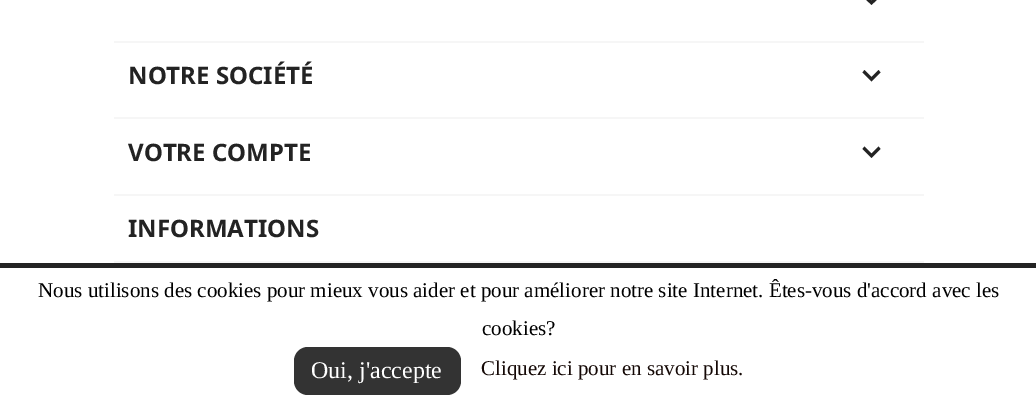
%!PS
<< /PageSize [1036 398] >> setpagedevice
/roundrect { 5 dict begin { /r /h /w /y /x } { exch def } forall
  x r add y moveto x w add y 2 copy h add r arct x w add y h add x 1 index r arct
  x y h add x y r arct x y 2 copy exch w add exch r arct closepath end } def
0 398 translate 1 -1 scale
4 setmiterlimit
1 setgray
0 0 1036 398 rectfill
0.965 setgray
114 41 810 2 rectfill
0.137 setgray
newpath 864.5 -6.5 moveto 871.5 0.5 lineto 878.5 -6.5 lineto 880.5 -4 lineto 871.5 5 lineto 862.5 -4 lineto closepath fill
0.965 setgray
114 117 810 2 rectfill
/NotoSans-Bold [24 0 0 -24 0 0] selectfont
0.137 setgray
128 84 moveto (NOTRE SOCIÉTÉ) show
newpath 864.5 70 moveto 871.5 77 lineto 878.5 70 lineto 880.5 72.5 lineto 871.5 81.5 lineto 862.5 72.5 lineto closepath fill
0.965 setgray
114 194 810 2 rectfill
0.137 setgray
128 161 moveto (VOTRE COMPTE) show
newpath 864.5 146.5 moveto 871.5 153.5 lineto 878.5 146.5 lineto 880.5 149 lineto 871.5 158 lineto 862.5 149 lineto closepath fill
0.965 setgray
114 261 810 2 rectfill
0.137 setgray
128 237 moveto (INFORMATIONS) show
0 263 1036 5 rectfill
/LiberationSerif-Regular [21 0 0 -21 0 0] selectfont
0 setgray
38 297 moveto (Nous utilisons des cookies pour mieux vous aider et pour améliorer notre site Internet. Êtes-vous d'accord avec les) show
482 335 moveto (cookies?) show
0.2 setgray
294 347 167 48 14 roundrect fill
/LiberationSerif-Regular [24 0 0 -24 0 0] selectfont
1 setgray
311 378 moveto (Oui, j'accepte) show
/LiberationSerif-Regular [21 0 0 -21 0 0] selectfont
0.078 0.031 0.02 setrgbcolor
481 375 moveto (Cliquez ici pour en savoir plus.) show
showpage
